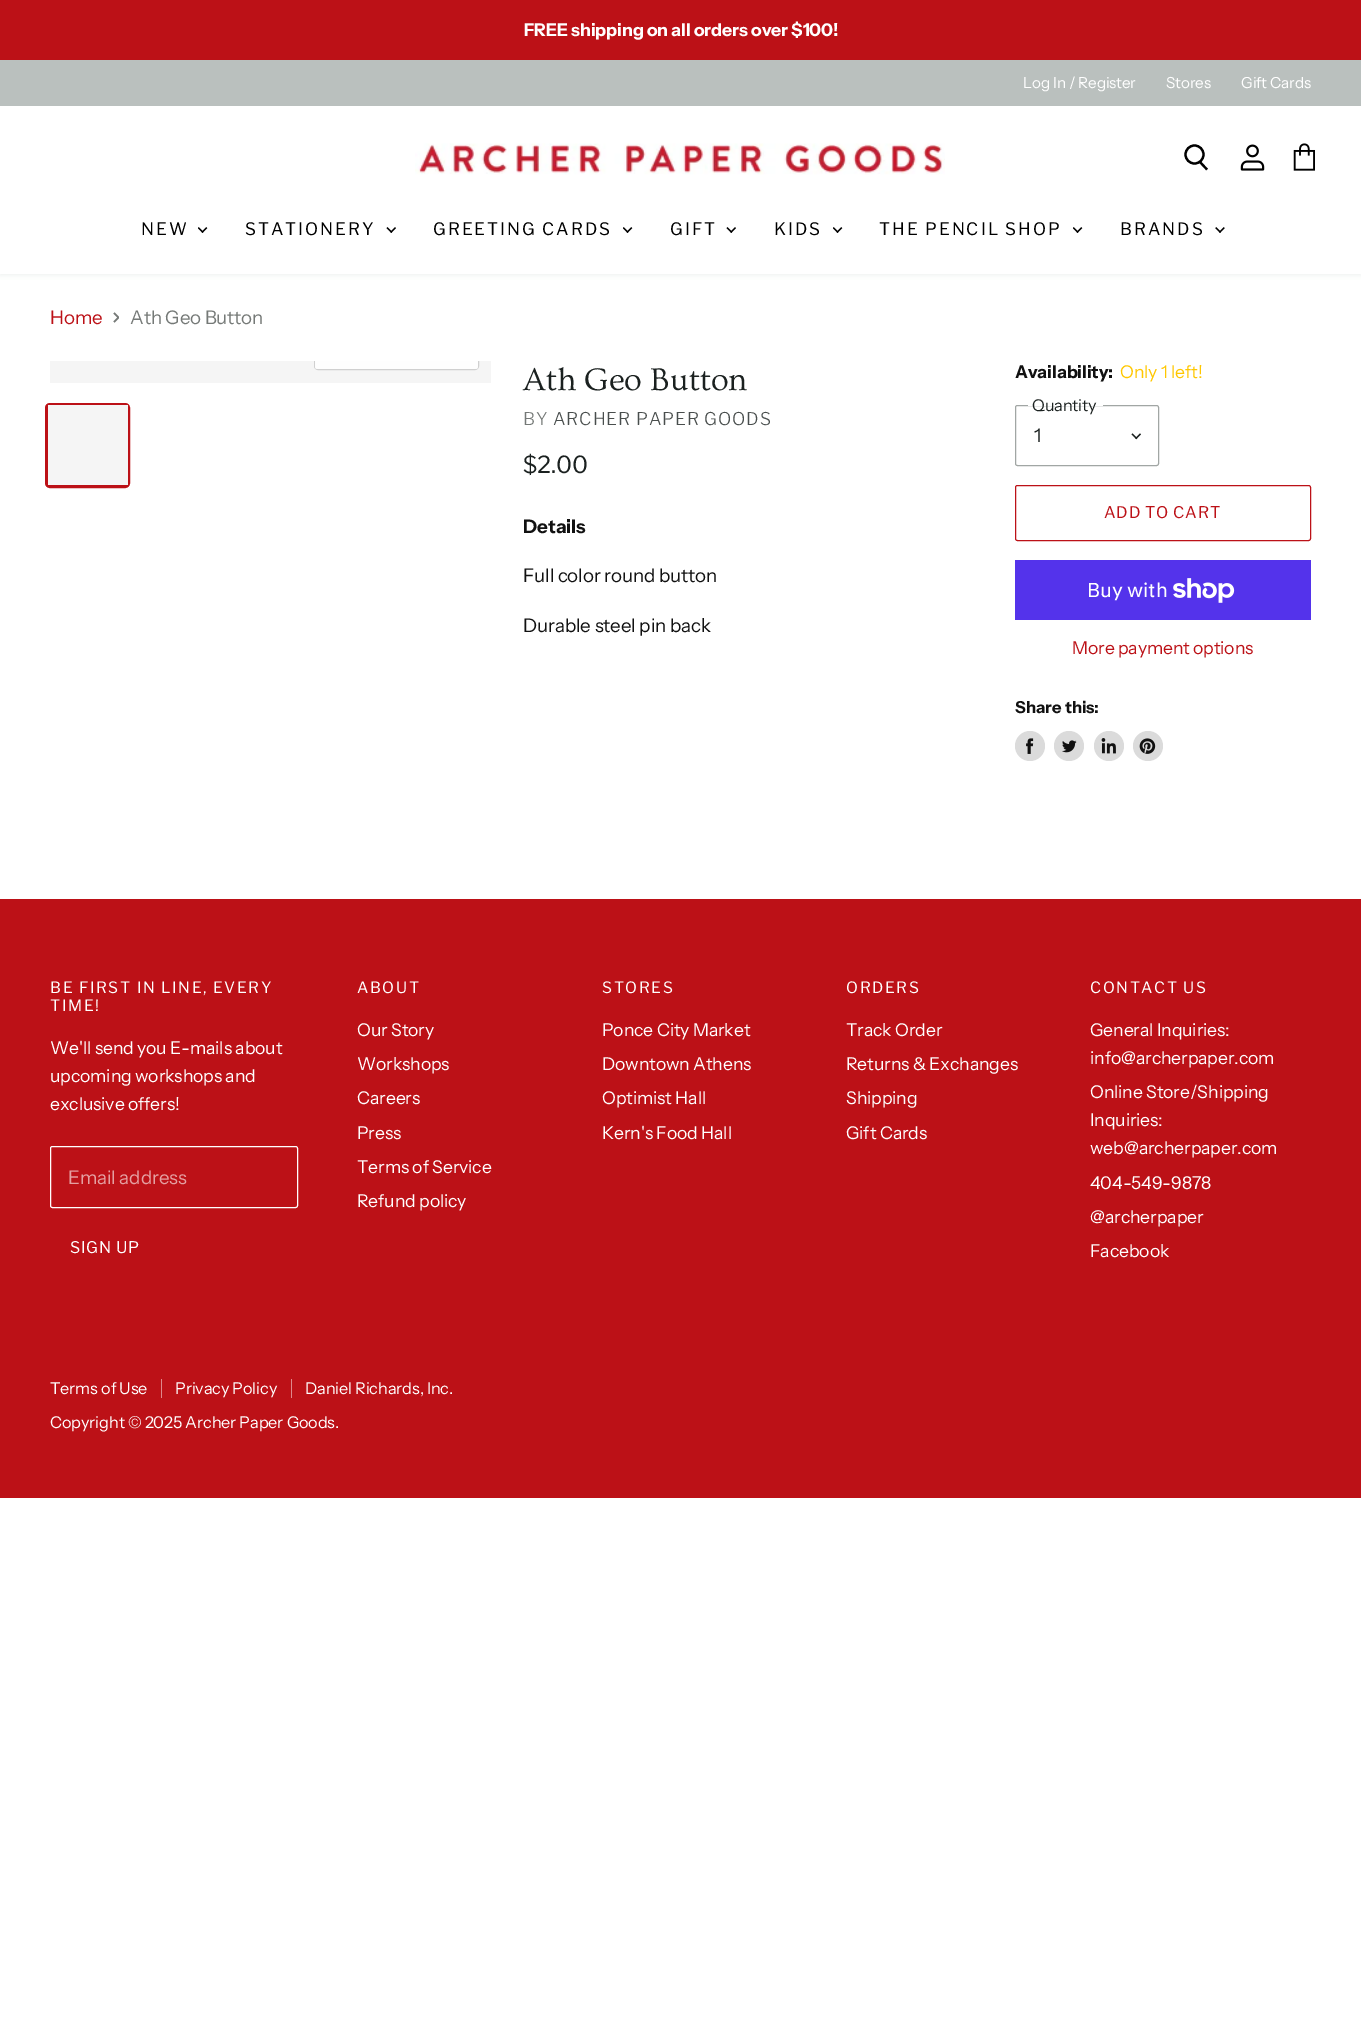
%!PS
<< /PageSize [1361 2041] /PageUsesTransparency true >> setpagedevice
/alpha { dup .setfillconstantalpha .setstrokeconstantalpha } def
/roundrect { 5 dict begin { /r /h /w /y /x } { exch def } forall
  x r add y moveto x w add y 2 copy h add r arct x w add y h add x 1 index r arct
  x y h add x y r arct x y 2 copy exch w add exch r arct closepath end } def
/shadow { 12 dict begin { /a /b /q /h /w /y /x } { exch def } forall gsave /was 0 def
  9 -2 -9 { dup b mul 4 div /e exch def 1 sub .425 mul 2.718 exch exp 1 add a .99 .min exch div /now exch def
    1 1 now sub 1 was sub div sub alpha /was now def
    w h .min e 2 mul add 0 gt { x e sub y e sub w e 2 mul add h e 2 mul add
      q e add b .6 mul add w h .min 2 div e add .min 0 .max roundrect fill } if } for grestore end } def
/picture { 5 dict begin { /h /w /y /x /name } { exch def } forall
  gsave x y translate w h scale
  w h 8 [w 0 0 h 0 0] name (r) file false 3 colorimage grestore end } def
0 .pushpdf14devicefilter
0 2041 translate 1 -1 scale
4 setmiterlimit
1 setgray
0 0 1361 2041 rectfill
0.737 0.067 0.09 setrgbcolor
0 0 1361 60 rectfill
/InstrumentSans-Bold [17.6 0 0 -17.6 0 0] selectfont
1 setgray
524 36 moveto -0.1 0 (FREE shipping on all orders over $100!) ashow
0.729 0.753 0.745 setrgbcolor
0 60 1361 46 rectfill
/InstrumentSans-Regular [15.25 0 0 -15.25 0 0] selectfont
1 setgray
1023 88 moveto -0.1 0 (Log In / Register) ashow
1166 88 moveto -0.1 0 (Stores) ashow
1241 88 moveto -0.1 0 (Gift Cards) ashow
0.729 0.753 0.745 setrgbcolor
0 108 1361 167 0 2.5 0.25 shadow
1 setgray
0 106 1361 168 rectfill
(img1.rgb) 415 143 530 32 picture
0 setgray
2.2 setlinewidth
newpath 1207 169.5 moveto 1199.5 161.5 lineto stroke
newpath 1194.5 154.5 9 0 360 arc closepath stroke
(img2.rgb) 1240 144 25 27 picture
(img3.rgb) 1293 143 22 28 picture
/LibreFranklin-Regular [17.1 0 0 -17.1 0 0] selectfont
141 235 moveto 2 0 (NEW) ashow
(img4.rgb) 198 227 10 6 picture
245 235 moveto 2 0 (STATIONERY) ashow
(img5.rgb) 386 227 10 6 picture
433 235 moveto 2 0 (GREETING CARDS) ashow
(img4.rgb) 623 227 10 6 picture
670 235 moveto 2 0 (GIFT) ashow
(img5.rgb) 726 227 10 6 picture
774 235 moveto 2 0 (KIDS) ashow
(img4.rgb) 833 227 10 6 picture
879 235 moveto 2 0 (THE PENCIL SHOP) ashow
(img4.rgb) 1073 227 10 6 picture
1120 235 moveto 2 0 (BRANDS) ashow
(img6.rgb) 1215 227 10 6 picture
/InstrumentSans-Regular [18.75 0 0 -18.75 0 0] selectfont
0.737 0.067 0.09 setrgbcolor
50 324 moveto -0.1 0 (Home) ashow
gsave
newpath 113 322.5 moveto 113 312.5 lineto 119 312.5 lineto 119 322.5 lineto closepath clip newpath
0.459 0.475 0.467 setrgbcolor
1.6 setlinewidth
newpath 114 322 moveto 118.5 317.5 lineto 114 313 lineto stroke
grestore
0.459 0.475 0.467 setrgbcolor
130 324 moveto -0.1 0 (Ath Geo Button) ashow
0.961 setgray
50 361 441 22 rectfill
gsave
50 361 441 22 rectclip
0.816 setgray
1 setlinewidth
314.5 334.5 164 35 3.5 roundrect stroke
grestore
0.9 alpha
1 setgray
newpath 315 361 moveto 478 361 lineto 478 366.5 lineto 478 368 477 369 475.5 369 curveto 317.5 369 lineto 316 369 315 368 315 366.5 curveto closepath fill
1 alpha
0.737 0.067 0.09 setrgbcolor
3 setlinewidth
46.5 404.5 82 82 3.5 roundrect stroke
0.961 setgray
48 405 80 80 rectfill
/Ovo-Regular [32.75 0 0 -32.75 0 0] selectfont
0.106 0.129 0.125 setrgbcolor
523 390 moveto (Ath Geo Button) show
/LibreFranklin-Light [17.5 0 0 -17.5 0 0] selectfont
0.459 0.475 0.467 setrgbcolor
523 425 moveto 0.9 0 (BY) ashow
0.286 0.306 0.302 setrgbcolor
553 425 moveto 0.9 0 (ARCHER PAPER GOODS) ashow
/LibreFranklin-Regular [23.5 0 0 -23.5 0 0] selectfont
0.106 0.129 0.125 setrgbcolor
523 473 moveto ($2.00) show
/InstrumentSans-Bold [18.75 0 0 -18.75 0 0] selectfont
0.067 setgray
523 533 moveto -0.1 0 (Details) ashow
/InstrumentSans-Regular [18.75 0 0 -18.75 0 0] selectfont
523 582 moveto -0.1 0 (Full color round button) ashow
523 632 moveto -0.1 0 (Durable steel pin back) ashow
/InstrumentSans-Bold [17.6 0 0 -17.6 0 0] selectfont
1015 378 moveto -0.1 0 (Availability:) ashow
/InstrumentSans-Regular [17.6 0 0 -17.6 0 0] selectfont
1 0.78 0 setrgbcolor
1120 378 moveto -0.1 0 (Only 1 left!) ashow
0.631 0.651 0.643 setrgbcolor
1 setlinewidth
1015.5 405.5 143 60 2 roundrect stroke
1 setgray
1028 405 75 1 rectfill
/InstrumentSans-Regular [16.25 0 0 -16.25 0 0] selectfont
0.106 0.129 0.125 setrgbcolor
1032 411 moveto -0.1 0 (Quantity) ashow
/InstrumentSans-Regular [18.75 0 0 -18.75 0 0] selectfont
1034 442 moveto -0.1 0 (1) ashow
(img7.rgb) 1131 433 10 7 picture
0.737 0.067 0.09 setrgbcolor
1015.5 485.5 295 55 2 roundrect stroke
/LibreFranklin-Regular [16 0 0 -16 0 0] selectfont
1104 518 moveto 0.75 0 (ADD TO CART) ashow
0.329 0.2 0.922 setrgbcolor
1015 560 296 60 rectfill
/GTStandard-Regular [20 0 0 -20 0 0] selectfont
1 setgray
1087 597 moveto -0.1 0 (Buy with) ashow
(img8.rgb) 1173 578 62 25 picture
/InstrumentSans-Regular [17.6 0 0 -17.6 0 0] selectfont
0.737 0.067 0.09 setrgbcolor
1072 654 moveto -0.1 0 (More payment options) ashow
/InstrumentSans-Bold [16.5 0 0 -16.5 0 0] selectfont
0.067 setgray
1015 713 moveto (Share this:) show
0.859 setgray
newpath 1030 746 15 0 360 arc closepath fill
(img9.rgb) 1026 738 8 16 picture
newpath 1069 746 15 0 360 arc closepath fill
(img10.rgb) 1062 740 15 13 picture
newpath 1109 746 15 0 360 arc closepath fill
(img11.rgb) 1101 738 15 16 picture
newpath 1148 746 15 0 360 arc closepath fill
(img12.rgb) 1139 738 17 16 picture
0.737 0.067 0.09 setrgbcolor
0 899 1361 599 rectfill
/LibreFranklin-Regular [15.6 0 0 -15.6 0 0] selectfont
1 setgray
50 993 moveto 1.6 0 (BE FIRST IN LINE, EVERY) ashow
50 1011 moveto 1.6 0 (TIME!) ashow
/InstrumentSans-Regular [17.6 0 0 -17.6 0 0] selectfont
50 1054 moveto -0.1 0 (We'll send you E-mails about) ashow
50 1082 moveto -0.1 0 (upcoming workshops and) ashow
50 1110 moveto -0.1 0 (exclusive offers!) ashow
50.5 1146.5 247 61 2 roundrect stroke
/InstrumentSans-Regular [18.75 0 0 -18.75 0 0] selectfont
0.894 0.627 0.635 setrgbcolor
68 1184 moveto -0.1 0 (Email address) ashow
/LibreFranklin-Regular [16 0 0 -16 0 0] selectfont
1 setgray
70 1253 moveto 0.75 0 (SIGN UP) ashow
/LibreFranklin-Regular [15.6 0 0 -15.6 0 0] selectfont
357 993 moveto 1.6 0 (ABOUT) ashow
/InstrumentSans-Regular [17.6 0 0 -17.6 0 0] selectfont
357 1036 moveto -0.1 0 (Our Story) ashow
357 1070 moveto -0.1 0 (Workshops) ashow
357 1104 moveto -0.1 0 (Careers) ashow
357 1139 moveto -0.1 0 (Press) ashow
357 1173 moveto -0.1 0 (Terms of Service) ashow
357 1207 moveto -0.1 0 (Refund policy) ashow
/LibreFranklin-Regular [15.6 0 0 -15.6 0 0] selectfont
602 993 moveto 1.6 0 (STORES) ashow
/InstrumentSans-Regular [17.6 0 0 -17.6 0 0] selectfont
602 1036 moveto -0.1 0 (Ponce City Market) ashow
602 1070 moveto -0.1 0 (Downtown Athens) ashow
602 1104 moveto -0.1 0 (Optimist Hall) ashow
602 1139 moveto -0.1 0 (Kern's Food Hall) ashow
/LibreFranklin-Regular [15.6 0 0 -15.6 0 0] selectfont
846 993 moveto 1.6 0 (ORDERS) ashow
/InstrumentSans-Regular [17.6 0 0 -17.6 0 0] selectfont
846 1036 moveto -0.1 0 (Track Order) ashow
846 1070 moveto -0.1 0 (Returns & Exchanges) ashow
846 1104 moveto -0.1 0 (Shipping) ashow
846 1139 moveto -0.1 0 (Gift Cards) ashow
/LibreFranklin-Regular [15.6 0 0 -15.6 0 0] selectfont
1090 993 moveto 1.6 0 (CONTACT US) ashow
/InstrumentSans-Regular [17.6 0 0 -17.6 0 0] selectfont
1090 1036 moveto -0.1 0 (General Inquiries:) ashow
1090 1064 moveto -0.1 0 (info@archerpaper.com) ashow
1090 1098 moveto -0.1 0 (Online Store/Shipping) ashow
1090 1126 moveto -0.1 0 (Inquiries:) ashow
1090 1154 moveto -0.1 0 (web@archerpaper.com) ashow
1090 1189 moveto -0.1 0 (404-549-9878) ashow
1090 1223 moveto -0.1 0 (@archerpaper) ashow
1090 1257 moveto -0.1 0 (Facebook) ashow
0.871 0.533 0.545 setrgbcolor
161 1379 1 19 rectfill
/InstrumentSans-Regular [16.25 0 0 -16.25 0 0] selectfont
1 setgray
50 1394 moveto -0.1 0 (Terms of Use) ashow
0.871 0.533 0.545 setrgbcolor
291 1379 1 19 rectfill
1 setgray
175 1394 moveto -0.1 0 (Privacy Policy) ashow
305 1394 moveto -0.1 0 (Daniel Richards, Inc.) ashow
50 1428 moveto -0.1 0 (Copyright © 2025 Archer Paper Goods.) ashow
.poppdf14devicefilter showpage
